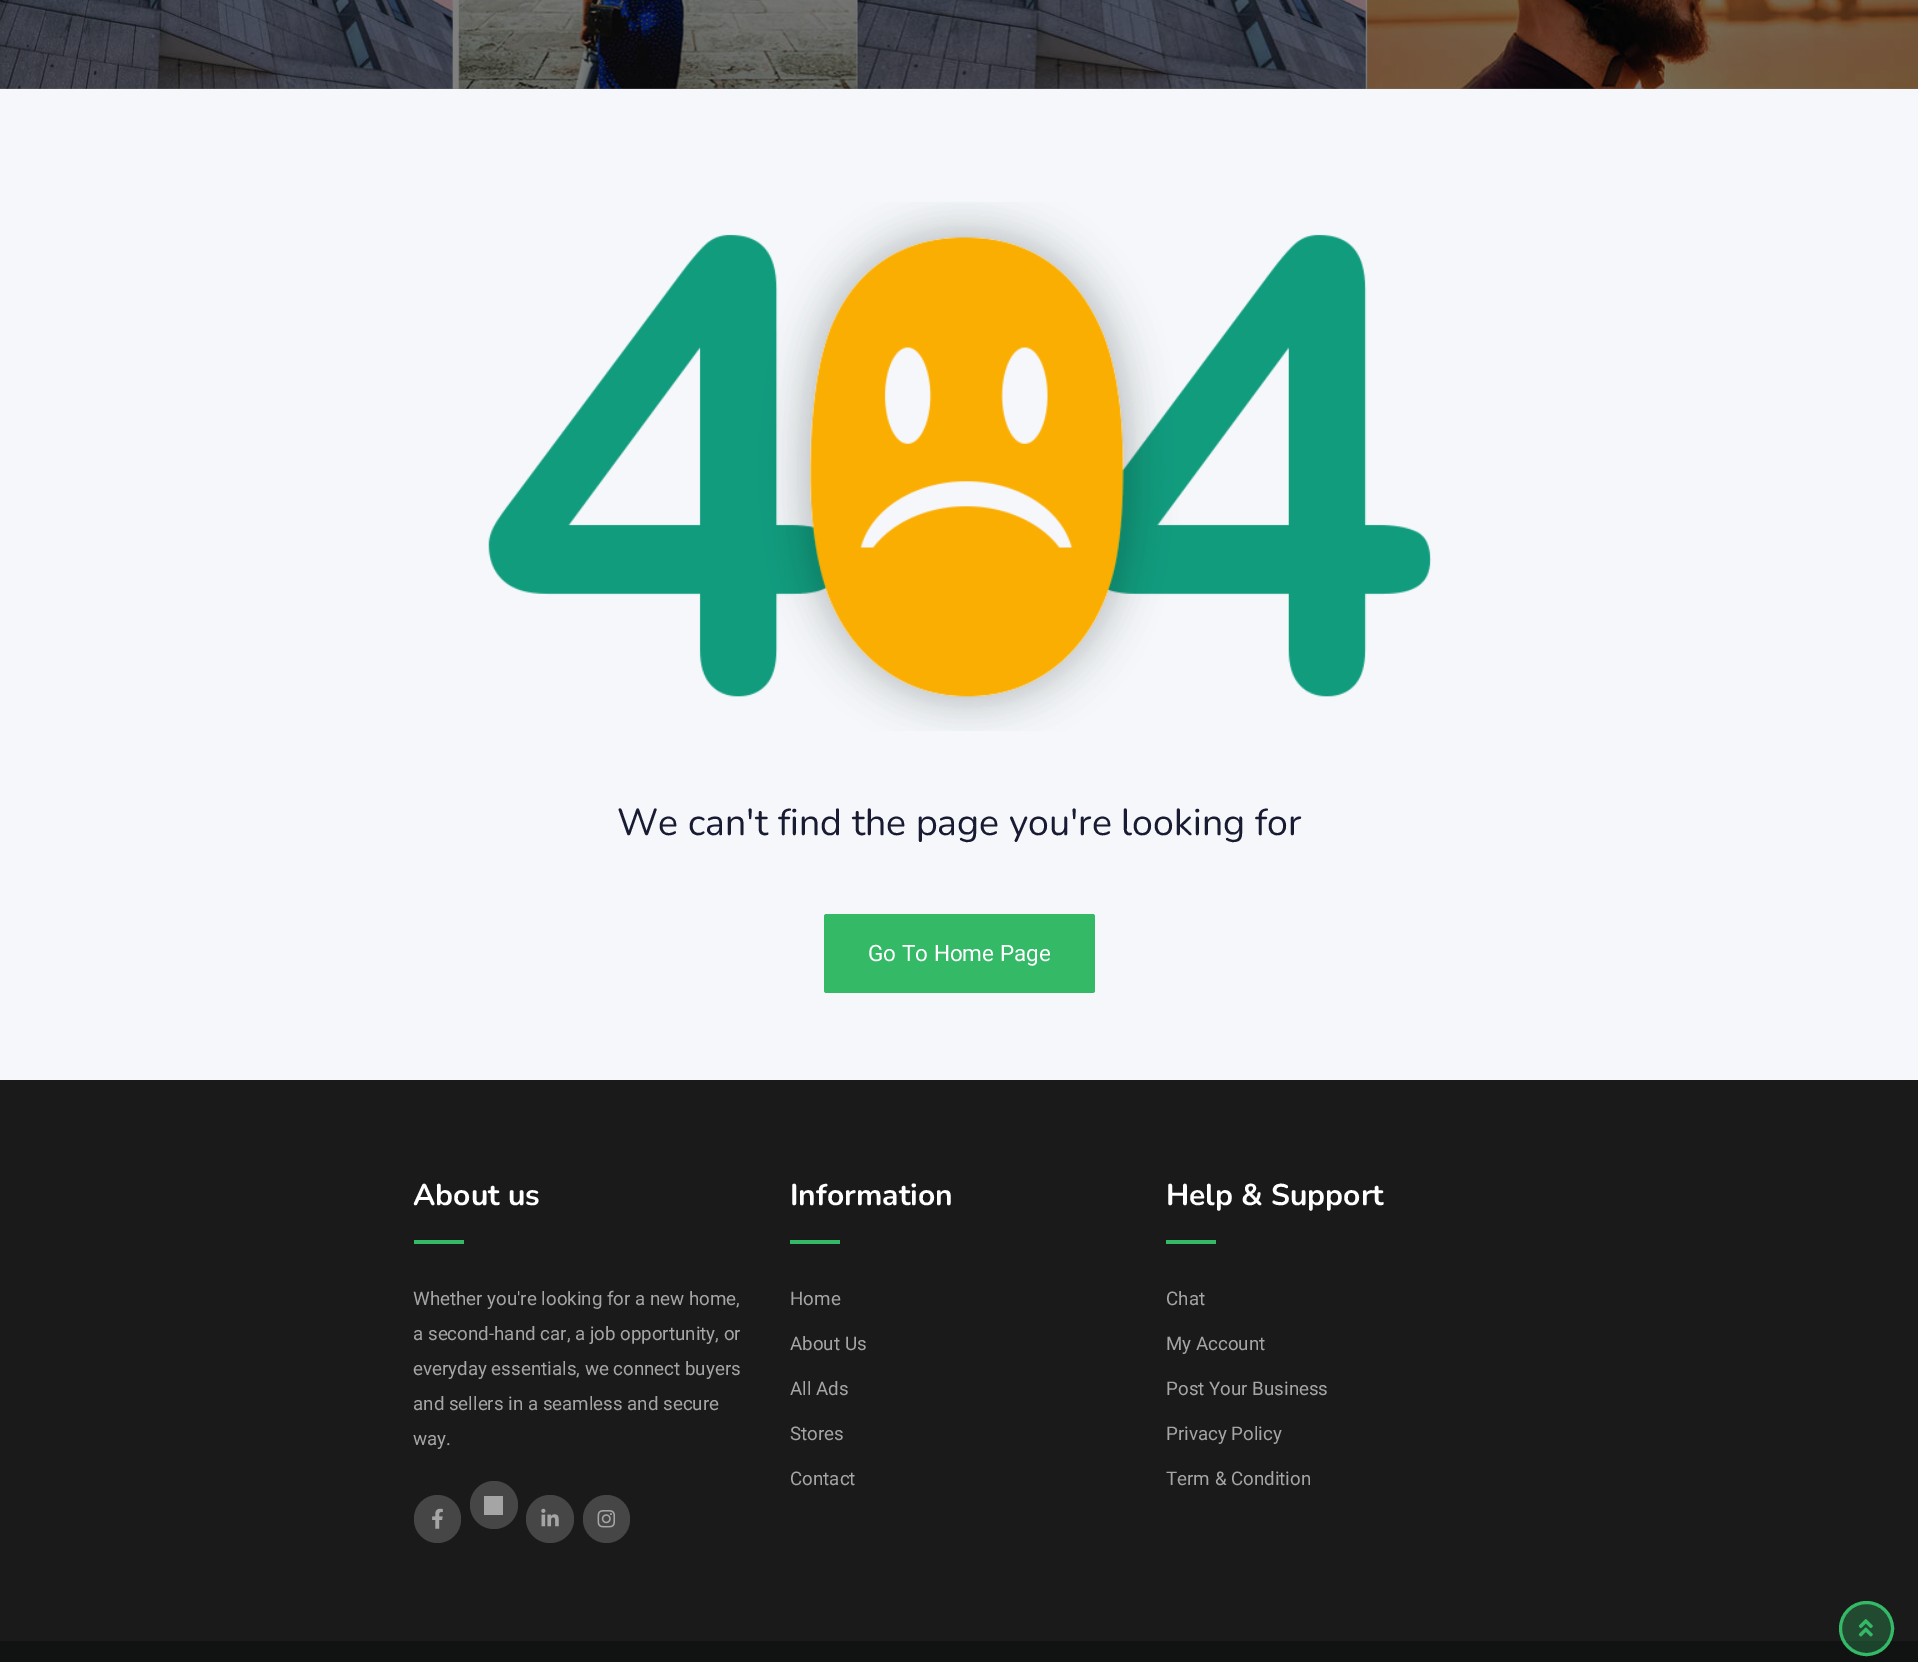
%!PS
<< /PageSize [1918 1662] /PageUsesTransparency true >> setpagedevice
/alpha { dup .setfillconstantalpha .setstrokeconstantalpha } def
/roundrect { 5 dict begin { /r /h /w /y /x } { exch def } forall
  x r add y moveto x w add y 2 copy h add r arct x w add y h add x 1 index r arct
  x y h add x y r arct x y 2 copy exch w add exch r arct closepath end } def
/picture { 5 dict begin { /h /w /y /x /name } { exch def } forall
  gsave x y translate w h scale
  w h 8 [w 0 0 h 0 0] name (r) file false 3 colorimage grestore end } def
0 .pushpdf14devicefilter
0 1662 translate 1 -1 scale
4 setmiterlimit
0.961 0.969 0.98 setrgbcolor
0 0 1918 1662 rectfill
(img1.rgb) 0 0 1918 89 picture
(img2.rgb) 488 202 944 529 picture
/Nunito-Regular [37.5 0 0 -37.5 0 0] selectfont
0.094 0.106 0.192 setrgbcolor
617 835 moveto (We can't find the page you're looking for) show
0.204 0.725 0.404 setrgbcolor
824 914 271 79 2.5 roundrect fill
/Roboto-Regular [22.5 0 0 -22.5 0 0] selectfont
1 setgray
868 961 moveto (Go To Home Page) show
0.102 setgray
0 1080 1918 561 rectfill
/Nunito-ExtraLight [30 0 0 -30 0 0] selectfont
1 setgray
413 1205 moveto (About us) show
0.204 0.725 0.404 setrgbcolor
414 1240 50 4 rectfill
/Roboto-Regular [18.75 0 0 -18.75 0 0] selectfont
0.647 setgray
413 1305 moveto (Whether you're looking for a new home,) show
413 1340 moveto (a second-hand car, a job opportunity, or) show
413 1375 moveto (everyday essentials, we connect buyers) show
413 1410 moveto (and sellers in a seamless and secure) show
413 1445 moveto (way.) show
0.275 setgray
414 1495 47 48 23.5 roundrect fill
(img3.rgb) 432 1508 11 21 picture
newpath 494 1505 24 0 360 arc closepath fill
0.647 setgray
484 1496 19 19 rectfill
0.275 setgray
newpath 550 1519 24 0 360 arc closepath fill
(img4.rgb) 541 1508 18 19 picture
583 1495 47 48 23.5 roundrect fill
(img5.rgb) 597 1510 18 18 picture
/Nunito-ExtraLight [30 0 0 -30 0 0] selectfont
1 setgray
790 1205 moveto (Information) show
0.204 0.725 0.404 setrgbcolor
790 1240 50 4 rectfill
/Roboto-Regular [18.75 0 0 -18.75 0 0] selectfont
0.647 setgray
790 1305 moveto (Home) show
790 1350 moveto (About Us) show
790 1395 moveto (All Ads) show
790 1440 moveto (Stores) show
790 1485 moveto (Contact) show
/Nunito-ExtraLight [30 0 0 -30 0 0] selectfont
1 setgray
1166 1205 moveto (Help & Support) show
0.204 0.725 0.404 setrgbcolor
1166 1240 50 4 rectfill
/Roboto-Regular [18.75 0 0 -18.75 0 0] selectfont
0.647 setgray
1166 1305 moveto (Chat) show
1166 1350 moveto (My Account) show
1166 1395 moveto (Post Your Business) show
1166 1440 moveto (Privacy Policy) show
1166 1485 moveto (Term & Condition) show
0.067 0.071 0.071 setrgbcolor
0 1641 1918 21 rectfill
0.3 alpha
0.204 0.725 0.404 setrgbcolor
newpath 1866.5 1628.5 26 0 360 arc closepath fill
1 alpha
3 setlinewidth
newpath 1866.5 1628.5 26 0 360 arc closepath stroke
(img6.rgb) 1858 1619 15 18 picture
.poppdf14devicefilter showpage
